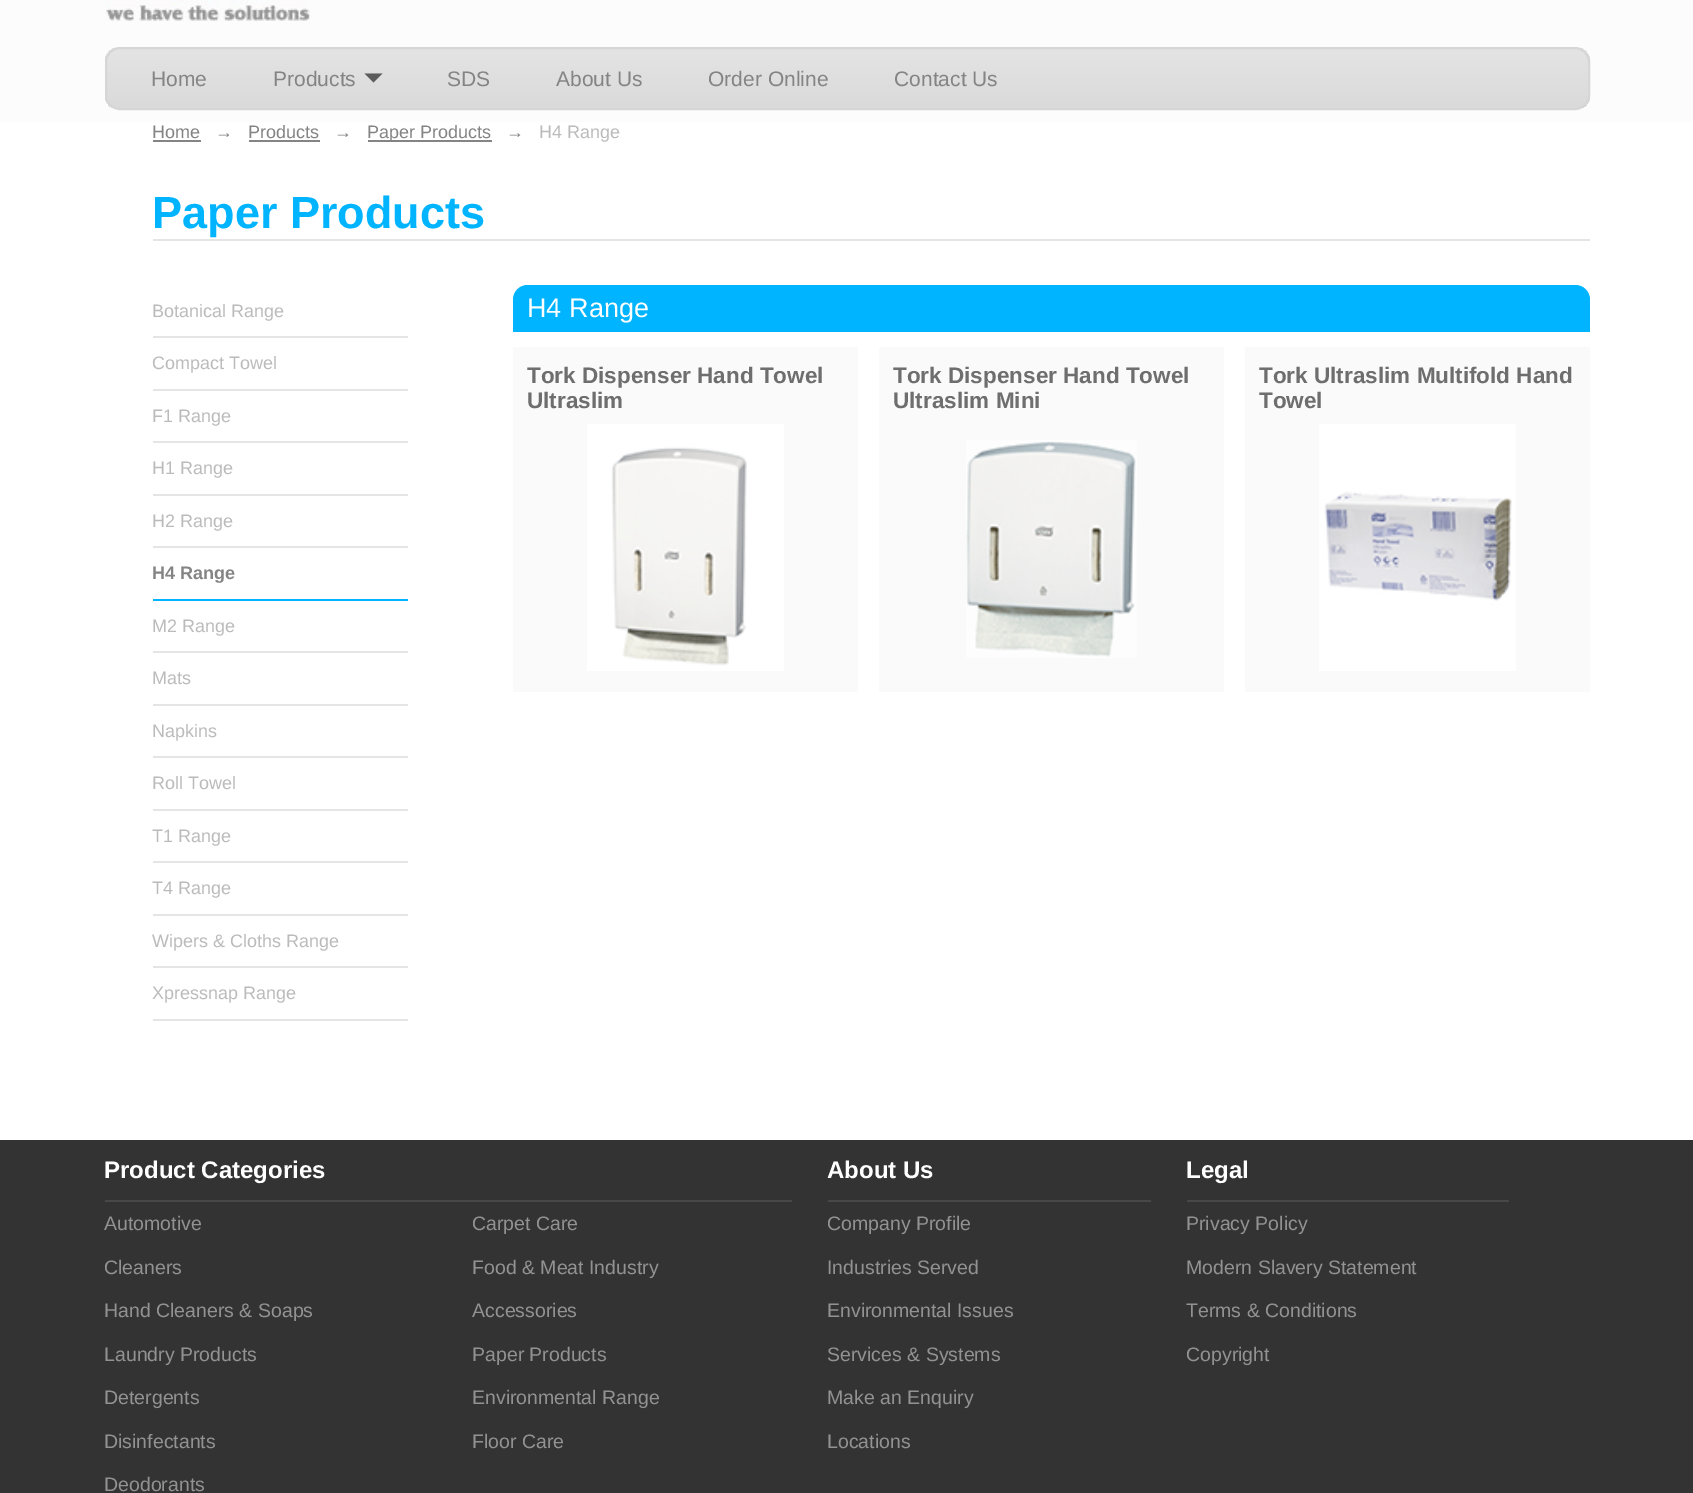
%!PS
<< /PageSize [1693 1493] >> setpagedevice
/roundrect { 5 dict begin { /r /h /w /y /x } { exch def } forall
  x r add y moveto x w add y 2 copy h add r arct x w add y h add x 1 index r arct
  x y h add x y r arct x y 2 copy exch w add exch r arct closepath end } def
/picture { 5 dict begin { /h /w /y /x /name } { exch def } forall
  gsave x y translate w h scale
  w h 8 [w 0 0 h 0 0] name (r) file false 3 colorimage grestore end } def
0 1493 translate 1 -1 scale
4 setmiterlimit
1 setgray
0 0 1693 1493 rectfill
0.988 setgray
0 0 1693 122 rectfill
(img1.rgb) 105 0 205 21 picture
gsave
105 47 1485 63 15 roundrect clip newpath
gsave newpath 105 48 moveto 1590 48 lineto 1590 108 lineto 105 108 lineto closepath clip newpath
<< /ShadingType 2 /ColorSpace /DeviceRGB /Coords [848 48 848 108] /Extend [true true] /Function << /FunctionType 2 /Domain [0 1] /C0 [0.894 0.894 0.894] /C1 [0.855 0.855 0.855] /N 1 >> >> shfill grestore
grestore
0.839 setgray
2 setlinewidth
106 48 1483 61 14 roundrect stroke
/LiberationSans-Regular [21 0 0 -21 0 0] selectfont
0.518 setgray
151 86 moveto (Home) show
273 86 moveto (Products) show
0.361 setgray
newpath 364.5 73.5 moveto 382.5 73.5 lineto 373.5 82.5 lineto closepath fill
0.518 setgray
447 86 moveto (SDS) show
556 86 moveto (About Us) show
708 86 moveto (Order Online) show
894 86 moveto (Contact Us) show
/LiberationSans-Regular [18 0 0 -18 0 0] selectfont
152 138 moveto (Home) show
153 140 48 2 rectfill
215 138 moveto (→) show
248 138 moveto (Products) show
249 140 71 2 rectfill
334 138 moveto (→) show
368 140 124 2 rectfill
367 138 moveto (Paper Products) show
506 138 moveto (→) show
0.733 setgray
539 138 moveto (H4 Range) show
0.898 setgray
153 239 1437 2 rectfill
/LiberationSans-Bold [45 0 0 -45 0 0] selectfont
0 0.706 1 setrgbcolor
152 228 moveto (Paper Products) show
0.898 setgray
153 336 255 2 rectfill
/LiberationSans-Regular [18 0 0 -18 0 0] selectfont
0.733 setgray
152 317 moveto (Botanical Range) show
0.898 setgray
153 389 255 2 rectfill
0.733 setgray
152 369 moveto (Compact Towel) show
0.898 setgray
153 441 255 2 rectfill
0.733 setgray
152 422 moveto (F1 Range) show
0.898 setgray
153 494 255 2 rectfill
0.733 setgray
152 474 moveto (H1 Range) show
0.898 setgray
153 546 255 2 rectfill
0.733 setgray
152 527 moveto (H2 Range) show
0 0.706 1 setrgbcolor
153 599 255 2 rectfill
/LiberationSans-Bold [18 0 0 -18 0 0] selectfont
0.518 setgray
152 579 moveto (H4 Range) show
0.898 setgray
153 651 255 2 rectfill
/LiberationSans-Regular [18 0 0 -18 0 0] selectfont
0.733 setgray
152 632 moveto (M2 Range) show
0.898 setgray
153 704 255 2 rectfill
0.733 setgray
152 684 moveto (Mats) show
0.898 setgray
153 756 255 2 rectfill
0.733 setgray
152 737 moveto (Napkins) show
0.898 setgray
153 809 255 2 rectfill
0.733 setgray
152 789 moveto (Roll Towel) show
0.898 setgray
153 861 255 2 rectfill
0.733 setgray
152 842 moveto (T1 Range) show
0.898 setgray
153 914 255 2 rectfill
0.733 setgray
152 894 moveto (T4 Range) show
0.898 setgray
153 966 255 2 rectfill
0.733 setgray
152 947 moveto (Wipers & Cloths Range) show
0.898 setgray
153 1019 255 2 rectfill
0.733 setgray
152 999 moveto (Xpressnap Range) show
0 0.706 1 setrgbcolor
newpath 528 285 moveto 1575 285 lineto 1583.5 285 1590 291.5 1590 300 curveto 1590 332 lineto 513 332 lineto 513 300 lineto 513 291.5 519.5 285 528 285 curveto closepath fill
/LiberationSans-Regular [27 0 0 -27 0 0] selectfont
1 setgray
527 317 moveto (H4 Range) show
0.98 setgray
513 347 345 345 rectfill
/LiberationSans-Bold [22.5 0 0 -22.5 0 0] selectfont
0.431 setgray
527 383 moveto (Tork Dispenser Hand Towel) show
527 408 moveto (Ultraslim) show
(img2.rgb) 587 424 197 247 picture
0.98 setgray
879 347 345 345 rectfill
0.431 setgray
893 383 moveto (Tork Dispenser Hand Towel) show
893 408 moveto (Ultraslim Mini) show
(img3.rgb) 966 440 171 218 picture
0.98 setgray
1245 347 345 345 rectfill
0.431 setgray
1259 383 moveto (Tork Ultraslim Multifold Hand) show
1259 408 moveto (Towel) show
(img4.rgb) 1319 424 197 247 picture
0.2 setgray
0 1140 1693 353 rectfill
0.282 setgray
105 1200 687 2 rectfill
/LiberationSans-Bold [24 0 0 -24 0 0] selectfont
1 setgray
104 1178 moveto (Product Categories) show
/LiberationSans-Regular [19.5 0 0 -19.5 0 0] selectfont
0.573 setgray
104 1230 moveto (Automotive) show
104 1274 moveto (Cleaners) show
104 1317 moveto (Hand Cleaners & Soaps) show
104 1361 moveto (Laundry Products) show
104 1404 moveto (Detergents) show
104 1448 moveto (Disinfectants) show
104 1491 moveto (Deodorants) show
472 1230 moveto (Carpet Care) show
472 1274 moveto (Food & Meat Industry) show
472 1317 moveto (Accessories) show
472 1361 moveto (Paper Products) show
472 1404 moveto (Environmental Range) show
472 1448 moveto (Floor Care) show
0.282 setgray
828 1200 323 2 rectfill
/LiberationSans-Bold [24 0 0 -24 0 0] selectfont
1 setgray
827 1178 moveto (About Us) show
/LiberationSans-Regular [19.5 0 0 -19.5 0 0] selectfont
0.573 setgray
827 1230 moveto (Company Profile) show
827 1274 moveto (Industries Served) show
827 1317 moveto (Environmental Issues) show
827 1361 moveto (Services & Systems) show
827 1404 moveto (Make an Enquiry) show
827 1448 moveto (Locations) show
0.282 setgray
1187 1200 322 2 rectfill
/LiberationSans-Bold [24 0 0 -24 0 0] selectfont
1 setgray
1186 1178 moveto (Legal) show
/LiberationSans-Regular [19.5 0 0 -19.5 0 0] selectfont
0.573 setgray
1186 1230 moveto (Privacy Policy) show
1186 1274 moveto (Modern Slavery Statement) show
1186 1317 moveto (Terms & Conditions) show
1186 1361 moveto (Copyright) show
showpage
